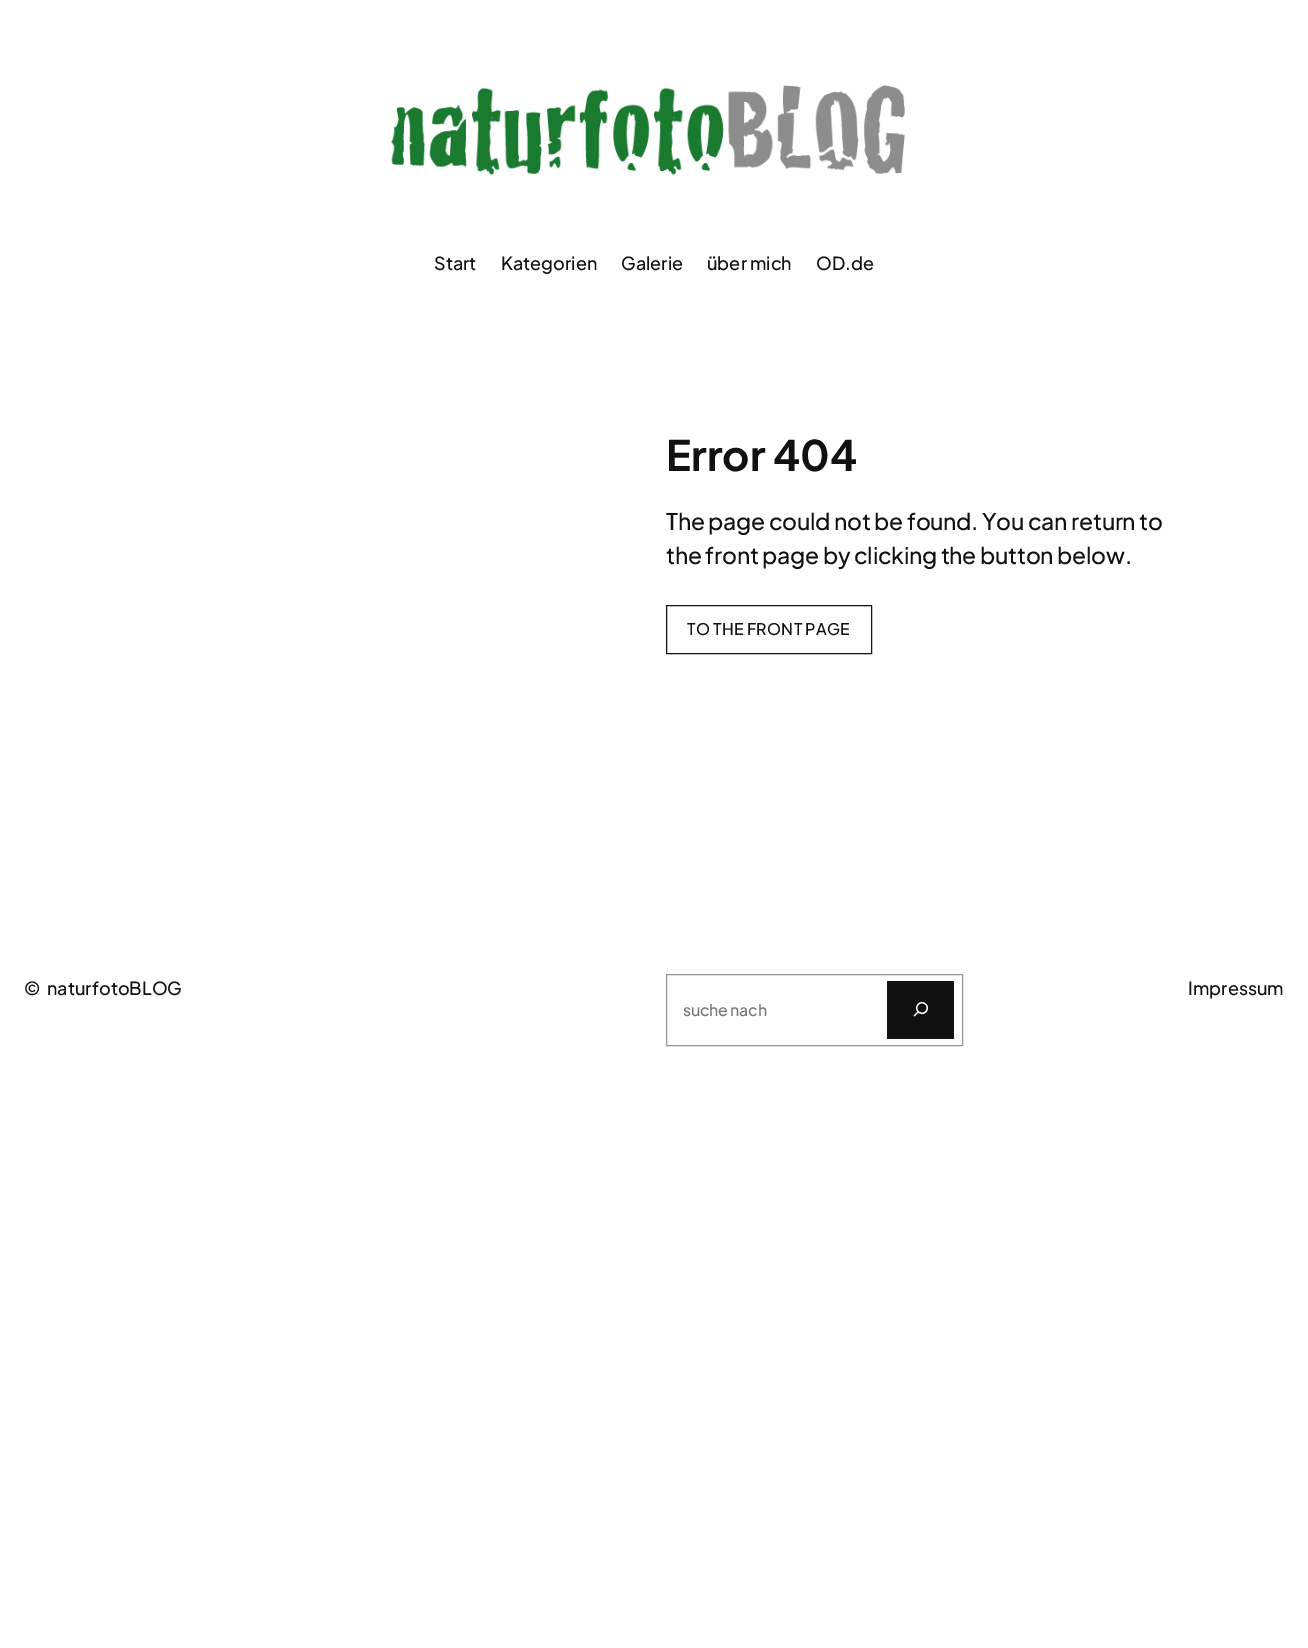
%!PS
<< /PageSize [1308 1648] >> setpagedevice
/picture { 5 dict begin { /h /w /y /x /name } { exch def } forall
  gsave x y translate w h scale
  w h 8 [w 0 0 h 0 0] name (r) file false 3 colorimage grestore end } def
0 1648 translate 1 -1 scale
4 setmiterlimit
1 setgray
0 0 1308 1648 rectfill
(img1.rgb) 391 85 514 90 picture
/PlusJakartaSans-Medium [18 0 0 -18 0 0] selectfont
0.067 setgray
434 270 moveto (Start) show
501 270 moveto (Kategorien) show
621 270 moveto (Galerie) show
707 270 moveto (über mich) show
816 270 moveto (OD.de) show
/PlusJakartaSans-Bold [42 0 0 -42 0 0] selectfont
666 471 moveto (Error 404) show
/PlusJakartaSans-Medium [22.9 0 0 -22.9 0 0] selectfont
666 530 moveto -0.25 0 (The page could not be found. You can return to) ashow
666 564 moveto -0.25 0 (the front page by clicking the button below.) ashow
666.5 605.5 205 48 rectstroke
/PlusJakartaSans-Medium [16 0 0 -16 0 0] selectfont
687 635 moveto 0.3 0 (TO THE FRONT PAGE) ashow
/PlusJakartaSans-Medium [18 0 0 -18 0 0] selectfont
24 995 moveto (©) show
47 995 moveto (naturfotoBLOG) show
1188 995 moveto (Impressum) show
0.58 setgray
666.5 974.5 296 71 rectstroke
/PlusJakartaSans-Medium [16 0 0 -16 0 0] selectfont
0.459 setgray
683 1016 moveto -0.25 0 (suche nach) ashow
0.067 setgray
887 981 67 58 rectfill
(img2.rgb) 913 1002 16 15 picture
showpage
